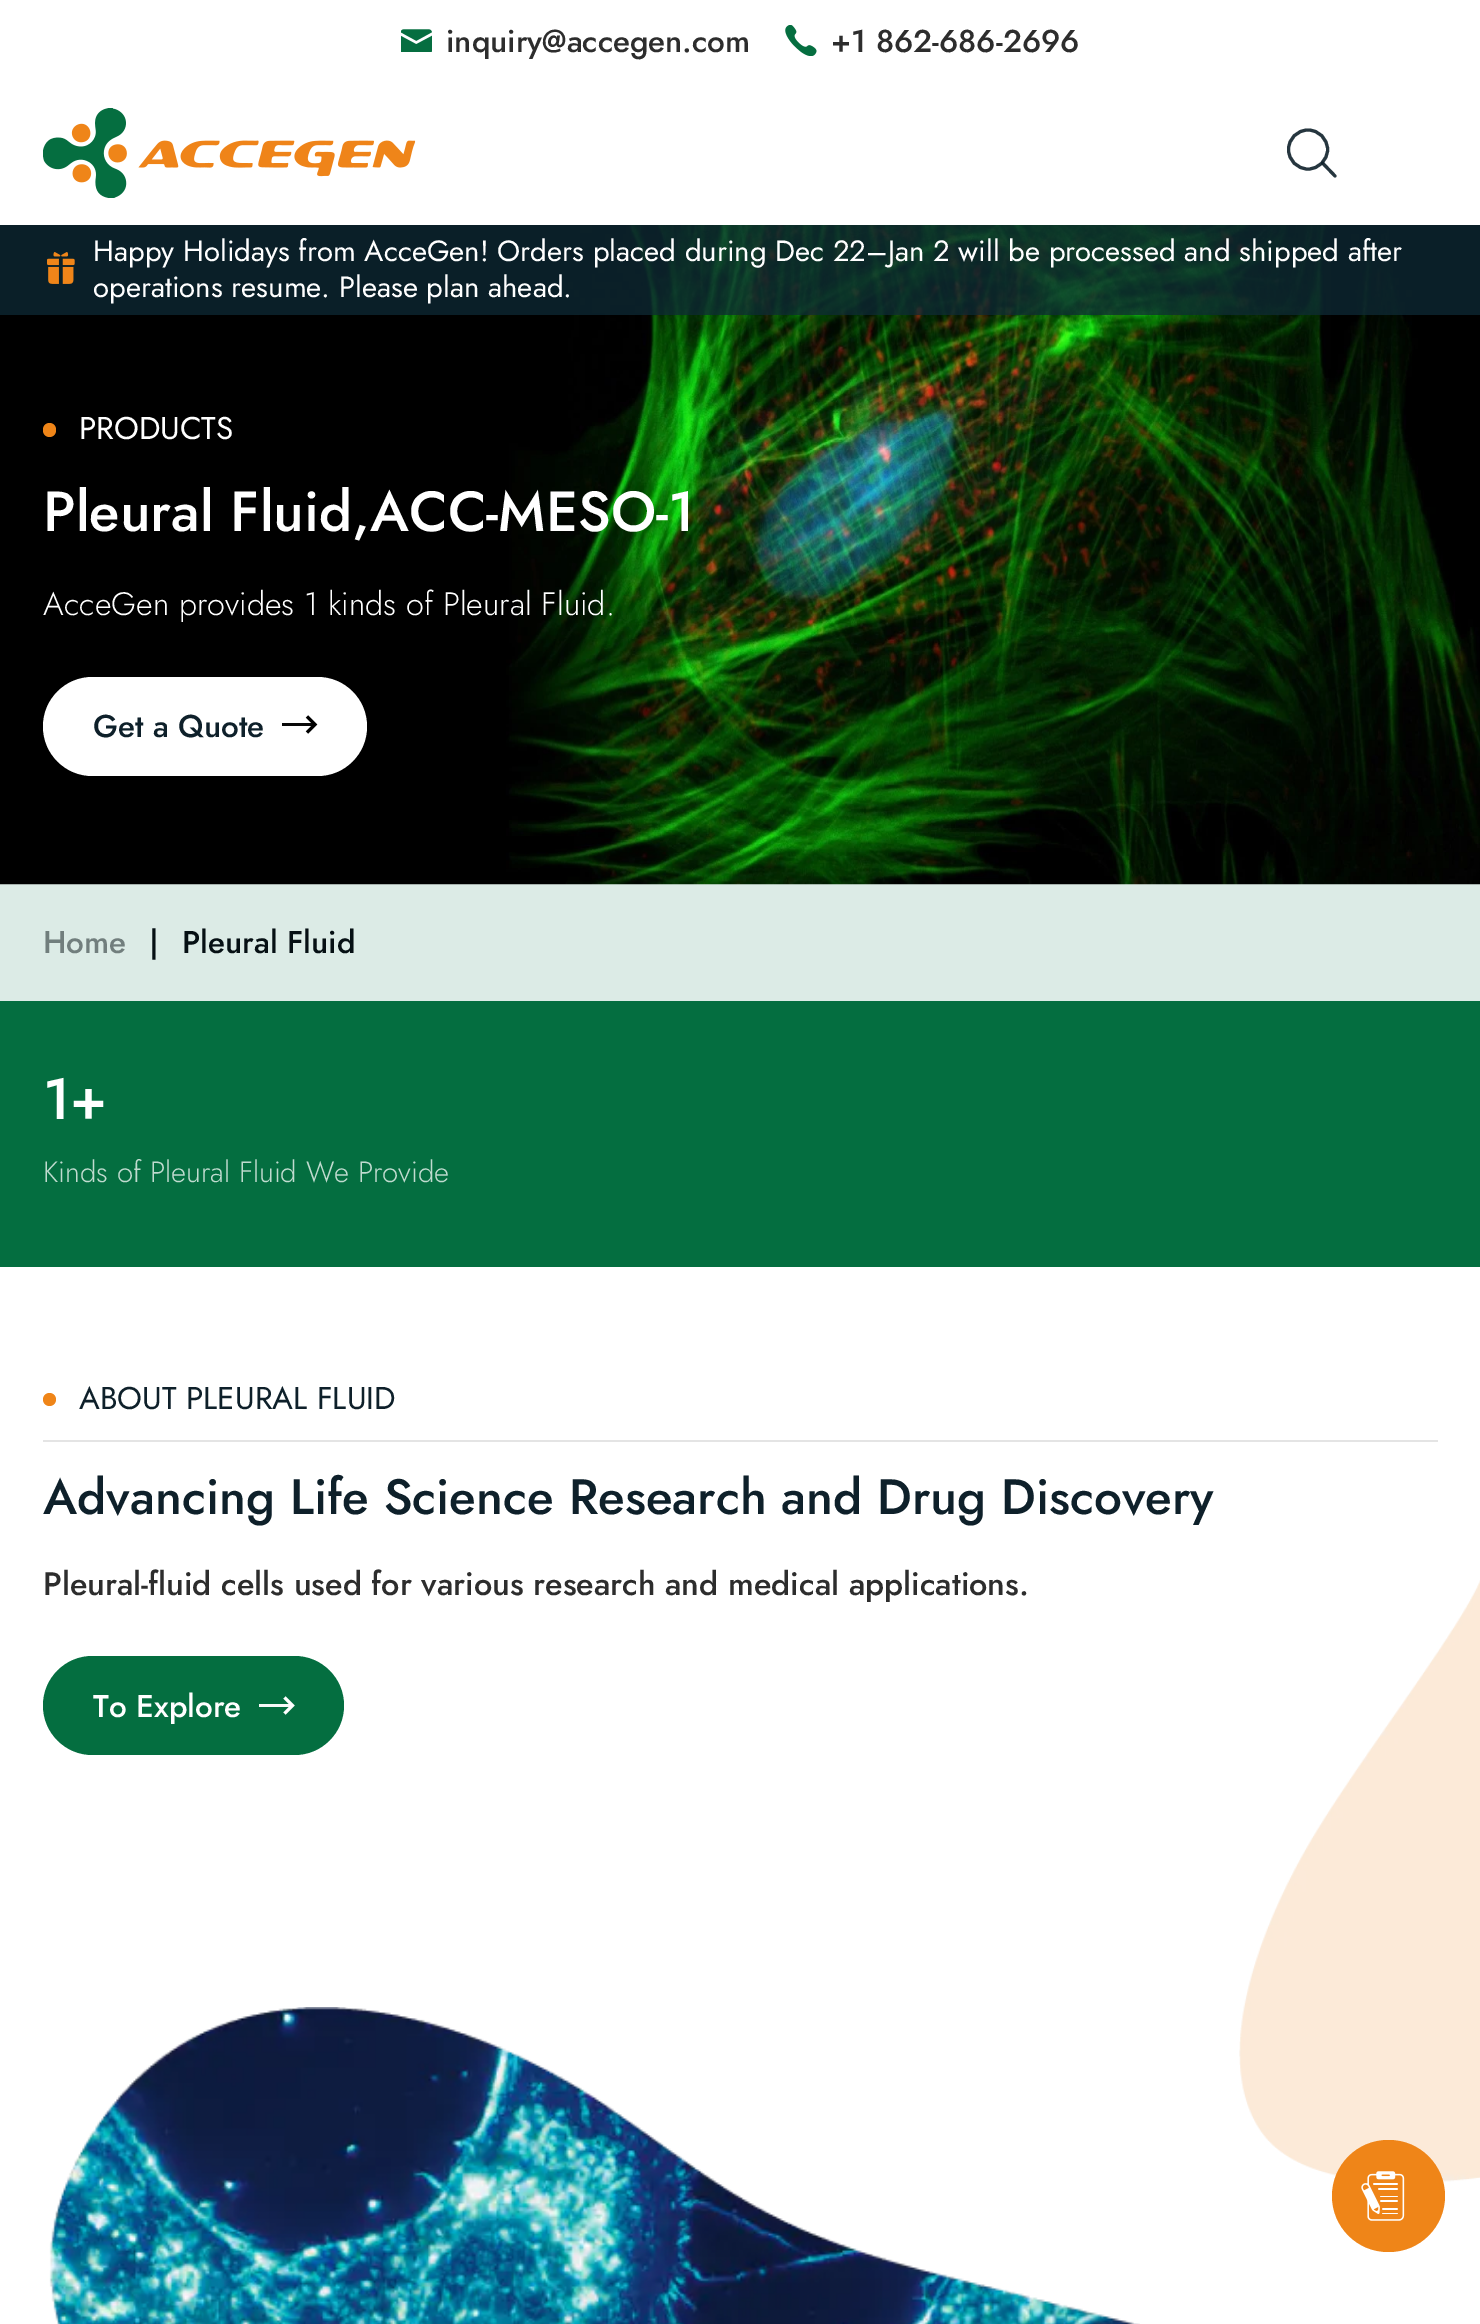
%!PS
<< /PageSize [1480 2324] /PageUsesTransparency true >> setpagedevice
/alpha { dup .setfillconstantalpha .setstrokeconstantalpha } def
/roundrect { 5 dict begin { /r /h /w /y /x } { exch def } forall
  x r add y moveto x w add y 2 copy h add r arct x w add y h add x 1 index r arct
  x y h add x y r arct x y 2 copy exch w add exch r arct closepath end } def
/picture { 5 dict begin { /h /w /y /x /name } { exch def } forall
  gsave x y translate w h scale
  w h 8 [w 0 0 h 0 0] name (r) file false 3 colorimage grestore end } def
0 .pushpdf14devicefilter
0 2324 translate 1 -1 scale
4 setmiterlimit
1 setgray
0 0 1480 2324 rectfill
(img1.rgb) 401 29 31 23 picture
/Jost-Medium [31.5 0 0 -31.5 0 0] selectfont
0.176 setgray
446 52 moveto (inquiry@accegen.com) show
(img2.rgb) 785 25 32 31 picture
831 52 moveto (+1 862-686-2696) show
(img3.rgb) 43 108 373 90 picture
0.149 0.212 0.247 setrgbcolor
3.1 setlinewidth
newpath 1308 149.5 19.5 0 360 arc closepath stroke
0.9 alpha
0.055 0.125 0.165 setrgbcolor
1 setlinecap
1 setlinejoin
newpath 1322.5 163 moveto 1335 176 lineto stroke
1 alpha
0.863 0.922 0.902 setrgbcolor
0 884 1480 117 rectfill
(img5.rgb) 0 225 1480 660 picture
0.75 alpha
0.055 0.165 0.208 setrgbcolor
0 225 1480 90 rectfill
1 alpha
(img4.rgb) 47 252 28 32 picture
/Jost-Regular [29.25 0 0 -29.25 0 0] selectfont
1 setgray
93 261 moveto (Happy Holidays from AcceGen! Orders placed during Dec 22–Jan 2 will be processed and shipped after) show
93 297 moveto (operations resume. Please plan ahead.) show
0.937 0.522 0.094 setrgbcolor
43 423 13 14 6.5 roundrect fill
/Jost-Regular [31.5 0 0 -31.5 0 0] selectfont
1 setgray
79 439 moveto (PRODUCTS) show
/Jost-Medium [56.25 0 0 -56.25 0 0] selectfont
43 531 moveto (Pleural Fluid,ACC-MESO-1) show
/Jost-Light [32.4 0 0 -32.4 0 0] selectfont
43 615 moveto (AcceGen provides 1 kinds of Pleural Fluid.) show
43 677 324 99 49.5 roundrect fill
/Jost-Medium [31.5 0 0 -31.5 0 0] selectfont
0.055 0.125 0.165 setrgbcolor
93 737 moveto (Get a Quote) show
0 setgray
2.9 setlinewidth
0 setlinecap
0 setlinejoin
newpath 307 716.5 moveto 315 724.5 lineto 307 732.5 lineto stroke
0.97 alpha
282 723 33 3 rectfill
1 alpha
0.443 0.494 0.49 setrgbcolor
43 953 moveto (Home) show
0.024 0.063 0.078 setrgbcolor
149 953 moveto (|) show
182 953 moveto (Pleural Fluid) show
0.016 0.431 0.251 setrgbcolor
0 1001 1480 266 rectfill
/Jost-Medium [58 0 0 -58 0 0] selectfont
1 setgray
43 1119 moveto (1+) show
/Jost-Light [29.25 0 0 -29.25 0 0] selectfont
0.753 0.859 0.812 setrgbcolor
43 1182 moveto (Kinds of Pleural Fluid We Provide) show
0.894 setgray
43 1440 1395 2 rectfill
0.937 0.522 0.094 setrgbcolor
newpath 49.5 1399.5 6.5 0 360 arc closepath fill
/Jost-Regular [31.5 0 0 -31.5 0 0] selectfont
0.055 0.125 0.165 setrgbcolor
79 1409 moveto (ABOUT PLEURAL FLUID) show
/Jost-Medium [49.5 0 0 -49.5 0 0] selectfont
43 1514 moveto (Advancing Life Science Research and Drug Discovery) show
/Jost-Medium [32.4 0 0 -32.4 0 0] selectfont
0.176 setgray
43 1595 moveto (Pleural-fluid cells used for various research and medical applications.) show
0.016 0.431 0.251 setrgbcolor
43 1656 301 99 49.5 roundrect fill
/Jost-Medium [31.5 0 0 -31.5 0 0] selectfont
1 setgray
93 1717 moveto (To Explore) show
newpath 284.5 1697.5 moveto 292.5 1705.5 lineto 284.5 1713.5 lineto stroke
0.97 alpha
259 1704 34 3 rectfill
1 alpha
(img6.rgb) 49 2007 1091 317 picture
(img7.rgb) 1239 1580 241 602 picture
0.937 0.522 0.094 setrgbcolor
1332 2140 113 112 56 roundrect fill
(img8.rgb) 1361 2171 44 50 picture
.poppdf14devicefilter showpage
